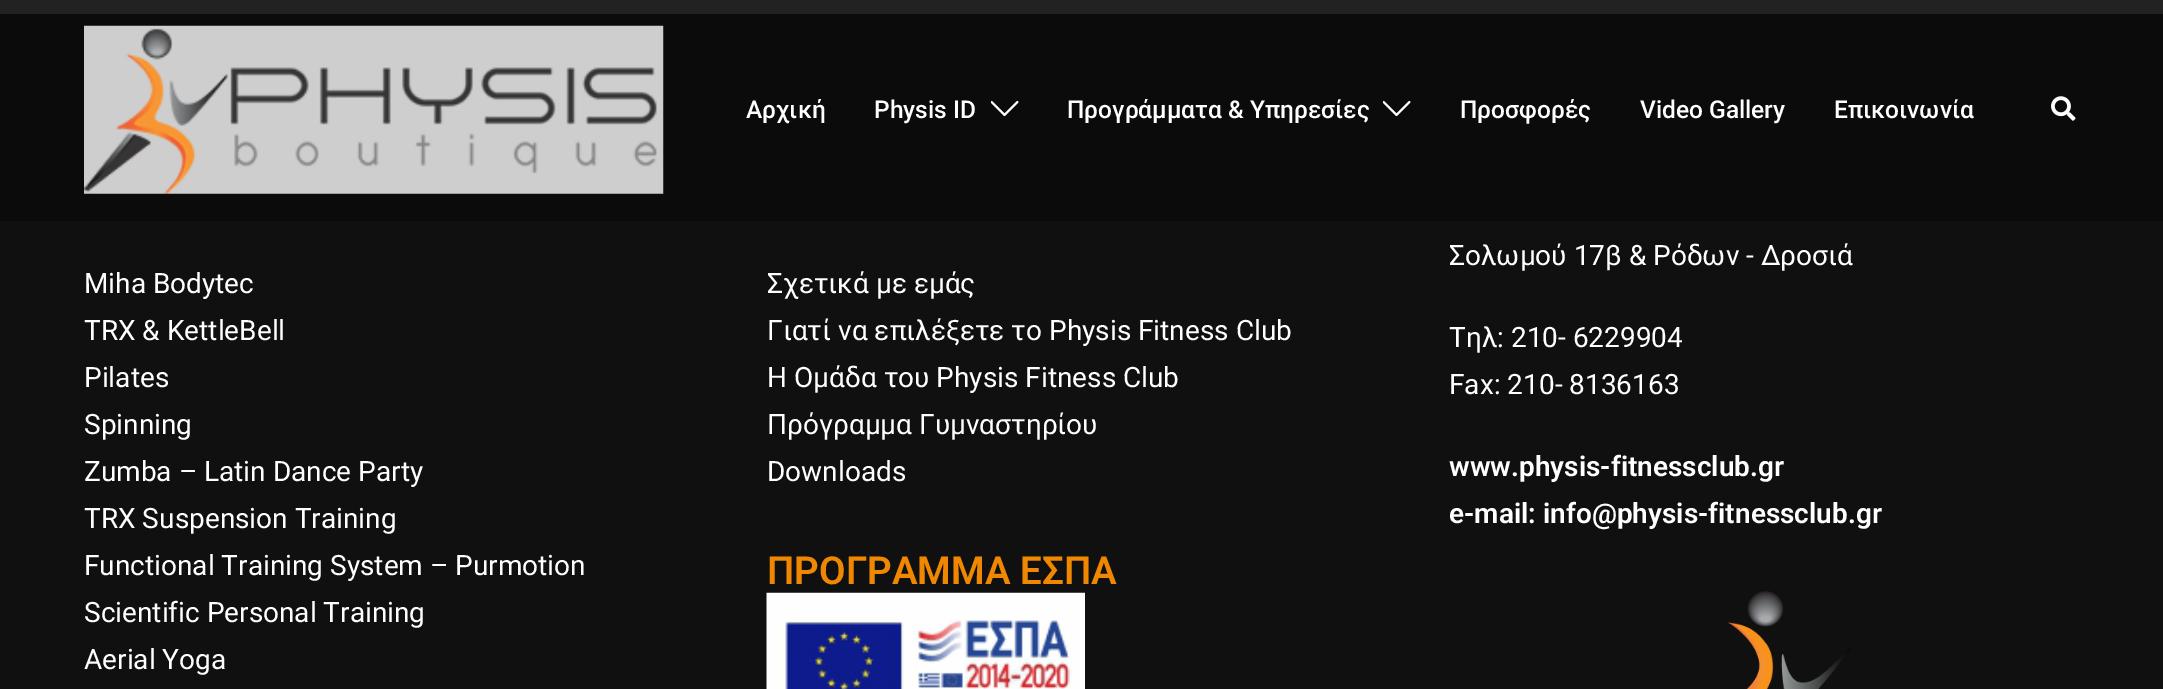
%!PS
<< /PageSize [2163 689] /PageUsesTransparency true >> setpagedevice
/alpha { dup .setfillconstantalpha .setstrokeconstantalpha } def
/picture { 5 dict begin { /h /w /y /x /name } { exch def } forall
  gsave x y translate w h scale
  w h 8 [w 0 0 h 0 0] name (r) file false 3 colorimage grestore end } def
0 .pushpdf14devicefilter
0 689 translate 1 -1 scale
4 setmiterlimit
1 setgray
0 0 2163 689 rectfill
0.063 setgray
0 14 2163 675 rectfill
0.9 alpha
0.039 setgray
0 0 2163 221 rectfill
1 alpha
(img1.rgb) 84 25 580 169 picture
/Roboto-Medium [24.5 0 0 -24.5 0 0] selectfont
1 setgray
746 118 moveto (Αρχική) show
874 118 moveto (Physis ID) show
(img2.rgb) 991 100 28 17 picture
1067 118 moveto (Προγράμματα & Υπηρεσίες) show
(img2.rgb) 1383 100 28 17 picture
1460 118 moveto (Προσφορές) show
1640 118 moveto (Video Gallery) show
1834 118 moveto (Επικοινωνία) show
(img3.rgb) 2051 96 25 25 picture
/Roboto-Regular [28 0 0 -28 0 0] selectfont
84 293 moveto (Miha Bodytec) show
84 340 moveto (TRX & KettleBell) show
84 387 moveto (Pilates) show
84 434 moveto (Spinning) show
84 481 moveto (Zumba – Latin Dance Party) show
84 528 moveto (TRX Suspension Training) show
84 575 moveto (Functional Training System – Purmotion) show
84 622 moveto (Scientific Personal Training) show
84 669 moveto (Aerial Yoga) show
767 293 moveto (Σχετικά με εμάς) show
767 340 moveto (Γιατί να επιλέξετε το Physis Fitness Club) show
767 387 moveto (H Ομάδα του Physis Fitness Club) show
767 434 moveto (Πρόγραμμα Γυμναστηρίου) show
767 481 moveto (Downloads) show
/Roboto-SemiBold [38.5 0 0 -38.5 0 0] selectfont
0.937 0.529 0.004 setrgbcolor
767 584 moveto (ΠΡΟΓΡΑΜΜΑ ΕΣΠΑ) show
(img4.rgb) 766 592 319 97 picture
/Roboto-Regular [28 0 0 -28 0 0] selectfont
1 setgray
1449 265 moveto (Σολωμού 17β & Ρόδων - Δροσιά) show
1449 347 moveto (Τηλ: 210- 6229904) show
1449 394 moveto (Fax: 210- 8136163) show
/Roboto-SemiBold [28 0 0 -28 0 0] selectfont
1449 476 moveto (www.physis-fitnessclub.gr) show
1449 523 moveto (e-mail: info@physis-fitnessclub.gr) show
(img5.rgb) 1728 591 123 98 picture
.poppdf14devicefilter showpage
